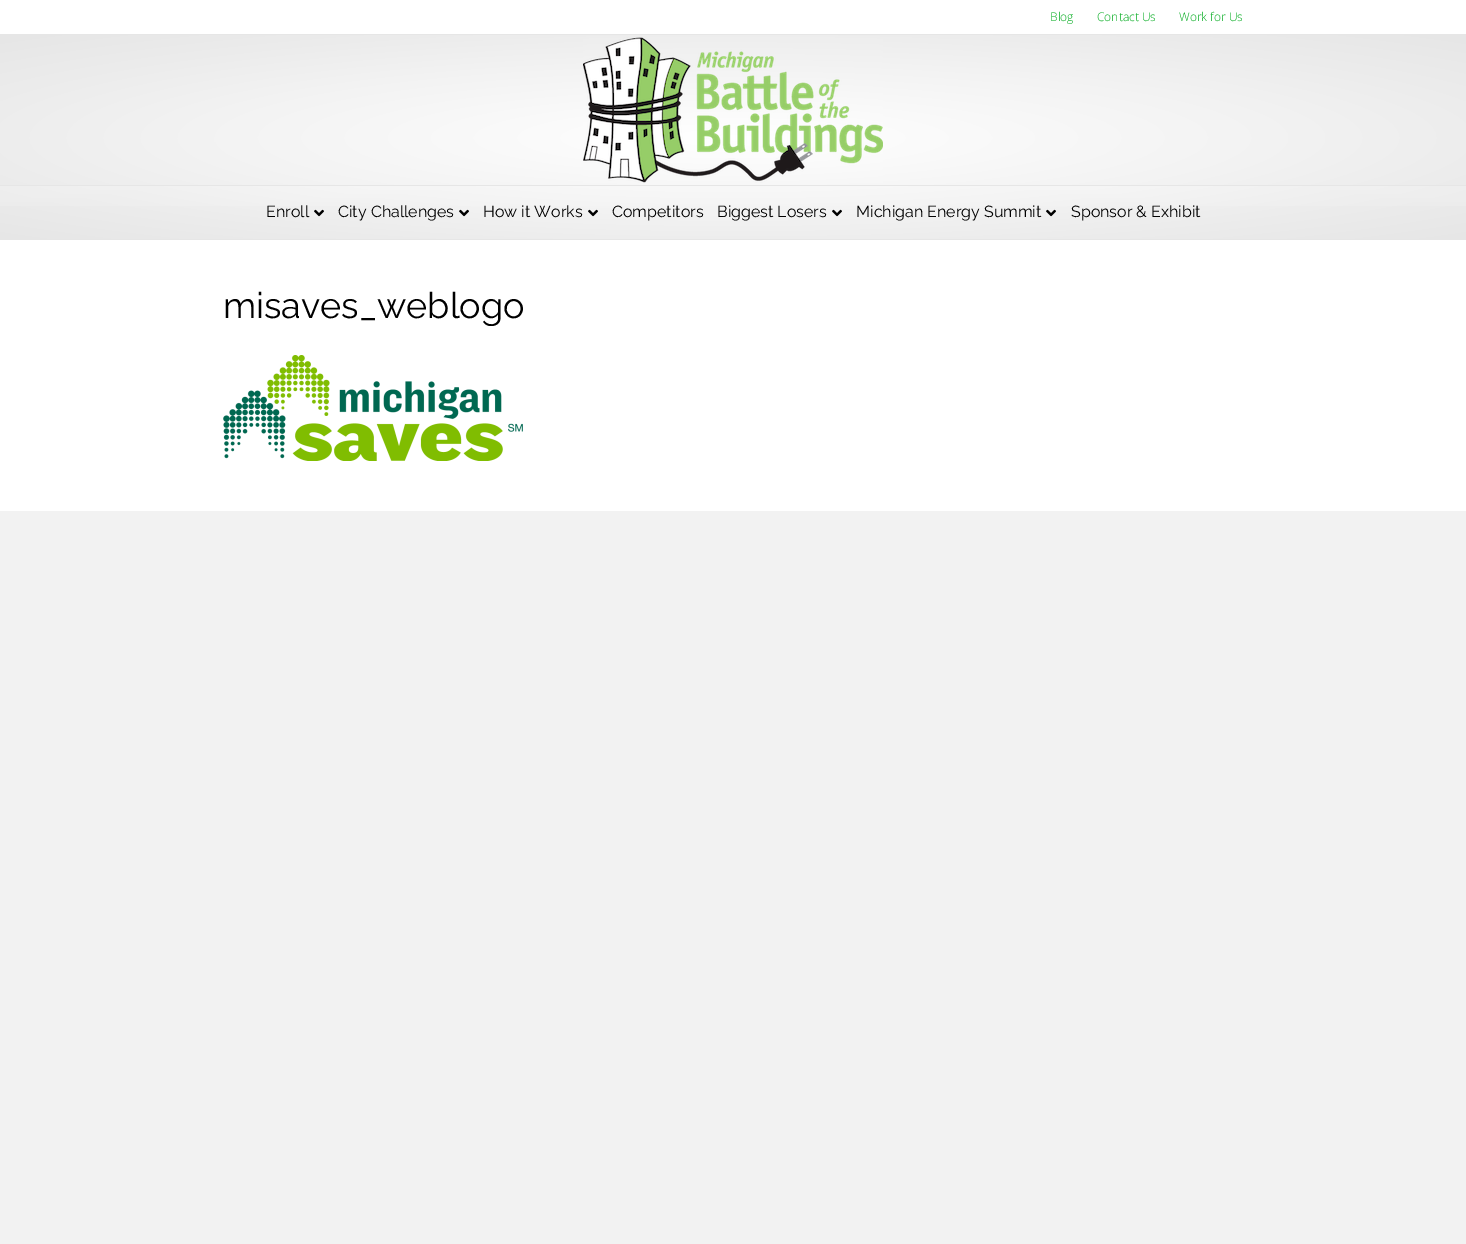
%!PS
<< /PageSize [1466 1244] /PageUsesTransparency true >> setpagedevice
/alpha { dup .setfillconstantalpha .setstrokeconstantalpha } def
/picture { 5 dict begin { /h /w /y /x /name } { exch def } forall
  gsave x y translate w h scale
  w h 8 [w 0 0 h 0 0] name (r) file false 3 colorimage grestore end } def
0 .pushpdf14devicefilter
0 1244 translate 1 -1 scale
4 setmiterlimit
0.949 setgray
0 0 1466 1244 rectfill
1 setgray
0 0 1466 34 rectfill
0.902 setgray
0 34 1466 1 rectfill
/OpenSans-Light [12 0 0 -12 0 0] selectfont
0 0.667 0.11 setrgbcolor
1050 21 moveto (Blog) show
1097 21 moveto (Contact Us) show
1179 21 moveto (Work for Us) show
gsave newpath 0 35 moveto 1466 35 lineto 1466 239 lineto 0 239 lineto closepath clip newpath 733 138 translate 1037 145 scale
<< /ShadingType 3 /ColorSpace /DeviceRGB /Coords [0 0 0 0 0 1] /Extend [true true] /Function << /FunctionType 2 /Domain [0 1] /C0 [1 1 1] /C1 [0.902 0.902 0.902] /N 1 >> >> shfill grestore
(img1.rgb) 583 37 300 146 picture
0.15 alpha
gsave newpath 0 186 moveto 1466 186 lineto 1466 206 lineto 0 206 lineto closepath clip newpath
<< /ShadingType 2 /ColorSpace /DeviceRGB /Coords [733 186 733 239] /Extend [true true] /Function << /FunctionType 2 /Domain [0 1] /C0 [1 1 1] /C1 [0.949 0.949 0.949] /N 1 >> >> shfill grestore
1 alpha
0.902 setgray
0 185 1466 1 rectfill
0 239 1466 1 rectfill
/Raleway-Regular [16 0 0 -16 0 0] selectfont
0 setgray
266 217 moveto (Enroll) show
(img2.rgb) 314 209 10 8 picture
338 217 moveto (City Challenges) show
(img3.rgb) 459 209 10 8 picture
483 217 moveto (How it Works) show
(img4.rgb) 588 209 10 8 picture
612 217 moveto (Competitors) show
717 217 moveto (Biggest Losers) show
(img5.rgb) 832 209 10 8 picture
856 217 moveto (Michigan Energy Summit) show
(img6.rgb) 1046 209 10 8 picture
1071 217 moveto (Sponsor & Exhibit) show
1 setgray
0 240 1466 271 rectfill
/Raleway-Regular [36 0 0 -36 0 0] selectfont
0 setgray
223 318 moveto (misaves_weblogo) show
(img7.rgb) 223 355 300 106 picture
.poppdf14devicefilter showpage
